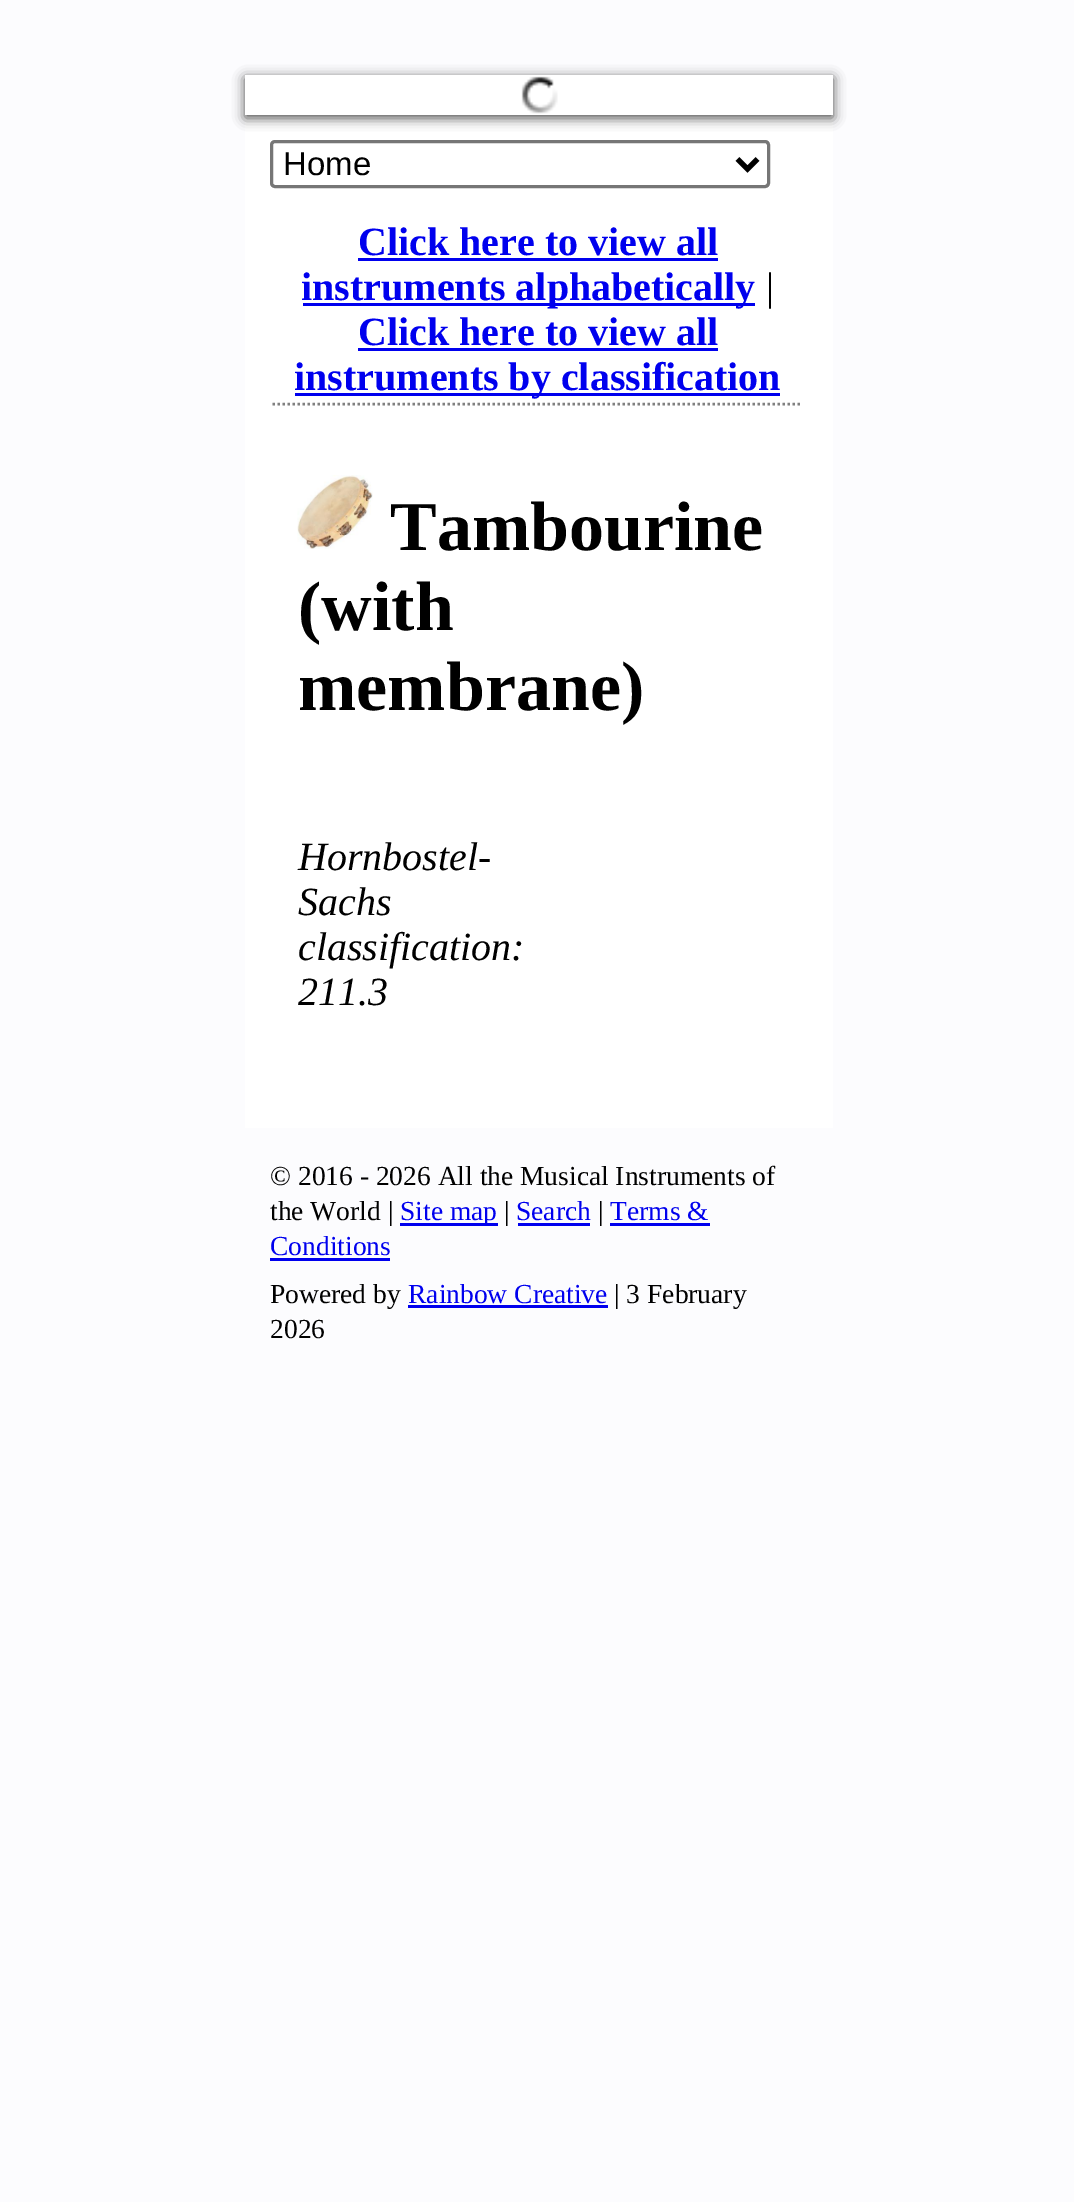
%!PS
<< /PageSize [1074 2202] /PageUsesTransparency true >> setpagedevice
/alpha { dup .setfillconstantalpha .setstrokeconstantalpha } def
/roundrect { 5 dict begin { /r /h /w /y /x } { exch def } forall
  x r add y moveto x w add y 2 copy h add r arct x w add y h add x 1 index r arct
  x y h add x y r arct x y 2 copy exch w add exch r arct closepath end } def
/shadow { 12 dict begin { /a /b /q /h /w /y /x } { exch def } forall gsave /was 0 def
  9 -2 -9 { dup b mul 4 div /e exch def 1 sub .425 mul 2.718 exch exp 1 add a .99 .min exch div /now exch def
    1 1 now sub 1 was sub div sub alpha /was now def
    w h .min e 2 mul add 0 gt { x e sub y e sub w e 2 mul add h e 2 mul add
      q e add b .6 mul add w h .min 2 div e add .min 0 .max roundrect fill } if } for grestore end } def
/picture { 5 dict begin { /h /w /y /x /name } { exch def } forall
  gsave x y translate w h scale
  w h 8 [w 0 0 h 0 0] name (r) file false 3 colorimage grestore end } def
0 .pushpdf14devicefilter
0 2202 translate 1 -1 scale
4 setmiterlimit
0.988 0.988 0.996 setrgbcolor
0 0 1074 2202 rectfill
1 setgray
245 115 588 1013 rectfill
0.29 setgray
245 78 588 40 0 6 1 shadow
1 setgray
245 75 588 40 rectfill
(img1.rgb) 521 76 37 38 picture
0.463 setgray
3 setlinewidth
271.5 141.5 497 45 3.5 roundrect stroke
0 setgray
5 setlinewidth
newpath 737.5 159 moveto 747.5 169 lineto 757.5 159 lineto stroke
/LiberationSans-Regular [33 0 0 -33 0 0] selectfont
283 175 moveto (Home) show
/LiberationSerif-Bold [40 0 0 -40 0 0] selectfont
0 0 0.933 setrgbcolor
358 255 moveto (Click here to view all) show
358 258 360 3 rectfill
303 303 452 3 rectfill
301 300 moveto (instruments alphabetically) show
/LiberationSerif-Regular [40 0 0 -40 0 0] selectfont
0 setgray
766 300 moveto (|) show
/LiberationSerif-Bold [40 0 0 -40 0 0] selectfont
0 0 0.933 setrgbcolor
358 345 moveto (Click here to view all) show
358 348 360 3 rectfill
295 393 485 3 rectfill
294 390 moveto (instruments by classification) show
0.502 setgray
2.5 setlinewidth
[2.5 2.5] 0 setdash
newpath 272.5 404 moveto 802.5 404 lineto stroke
(img2.rgb) 297 475 76 74 picture
/LiberationSerif-Bold [70 0 0 -70 0 0] selectfont
0 setgray
390 550 moveto (Tambourine) show
298 630 moveto (\(with) show
298 710 moveto (membrane\)) show
/LiberationSerif-Italic [40 0 0 -40 0 0] selectfont
298 870 moveto (Hornbostel-) show
298 915 moveto (Sachs) show
298 960 moveto (classification:) show
298 1005 moveto (211.3) show
/LiberationSerif-Regular [27.5 0 0 -27.5 0 0] selectfont
270 1185 moveto (© 2016 - 2026 All the Musical Instruments of) show
270 1220 moveto (the World |) show
0 0 0.933 setrgbcolor
400 1223 98 3 rectfill
400 1220 moveto (Site map) show
0 setgray
504 1220 moveto (|) show
0 0 0.933 setrgbcolor
516 1220 moveto (Search) show
518 1223 72 3 rectfill
0 setgray
598 1220 moveto (|) show
0 0 0.933 setrgbcolor
610 1220 moveto (Terms &) show
610 1223 100 3 rectfill
270 1255 moveto (Conditions) show
270 1258 120 3 rectfill
0 setgray
270 1303 moveto (Powered by) show
0 0 0.933 setrgbcolor
408 1303 moveto (Rainbow Creative) show
408 1305 200 3 rectfill
0 setgray
614 1303 moveto (| 3 February) show
270 1338 moveto (2026) show
.poppdf14devicefilter showpage
